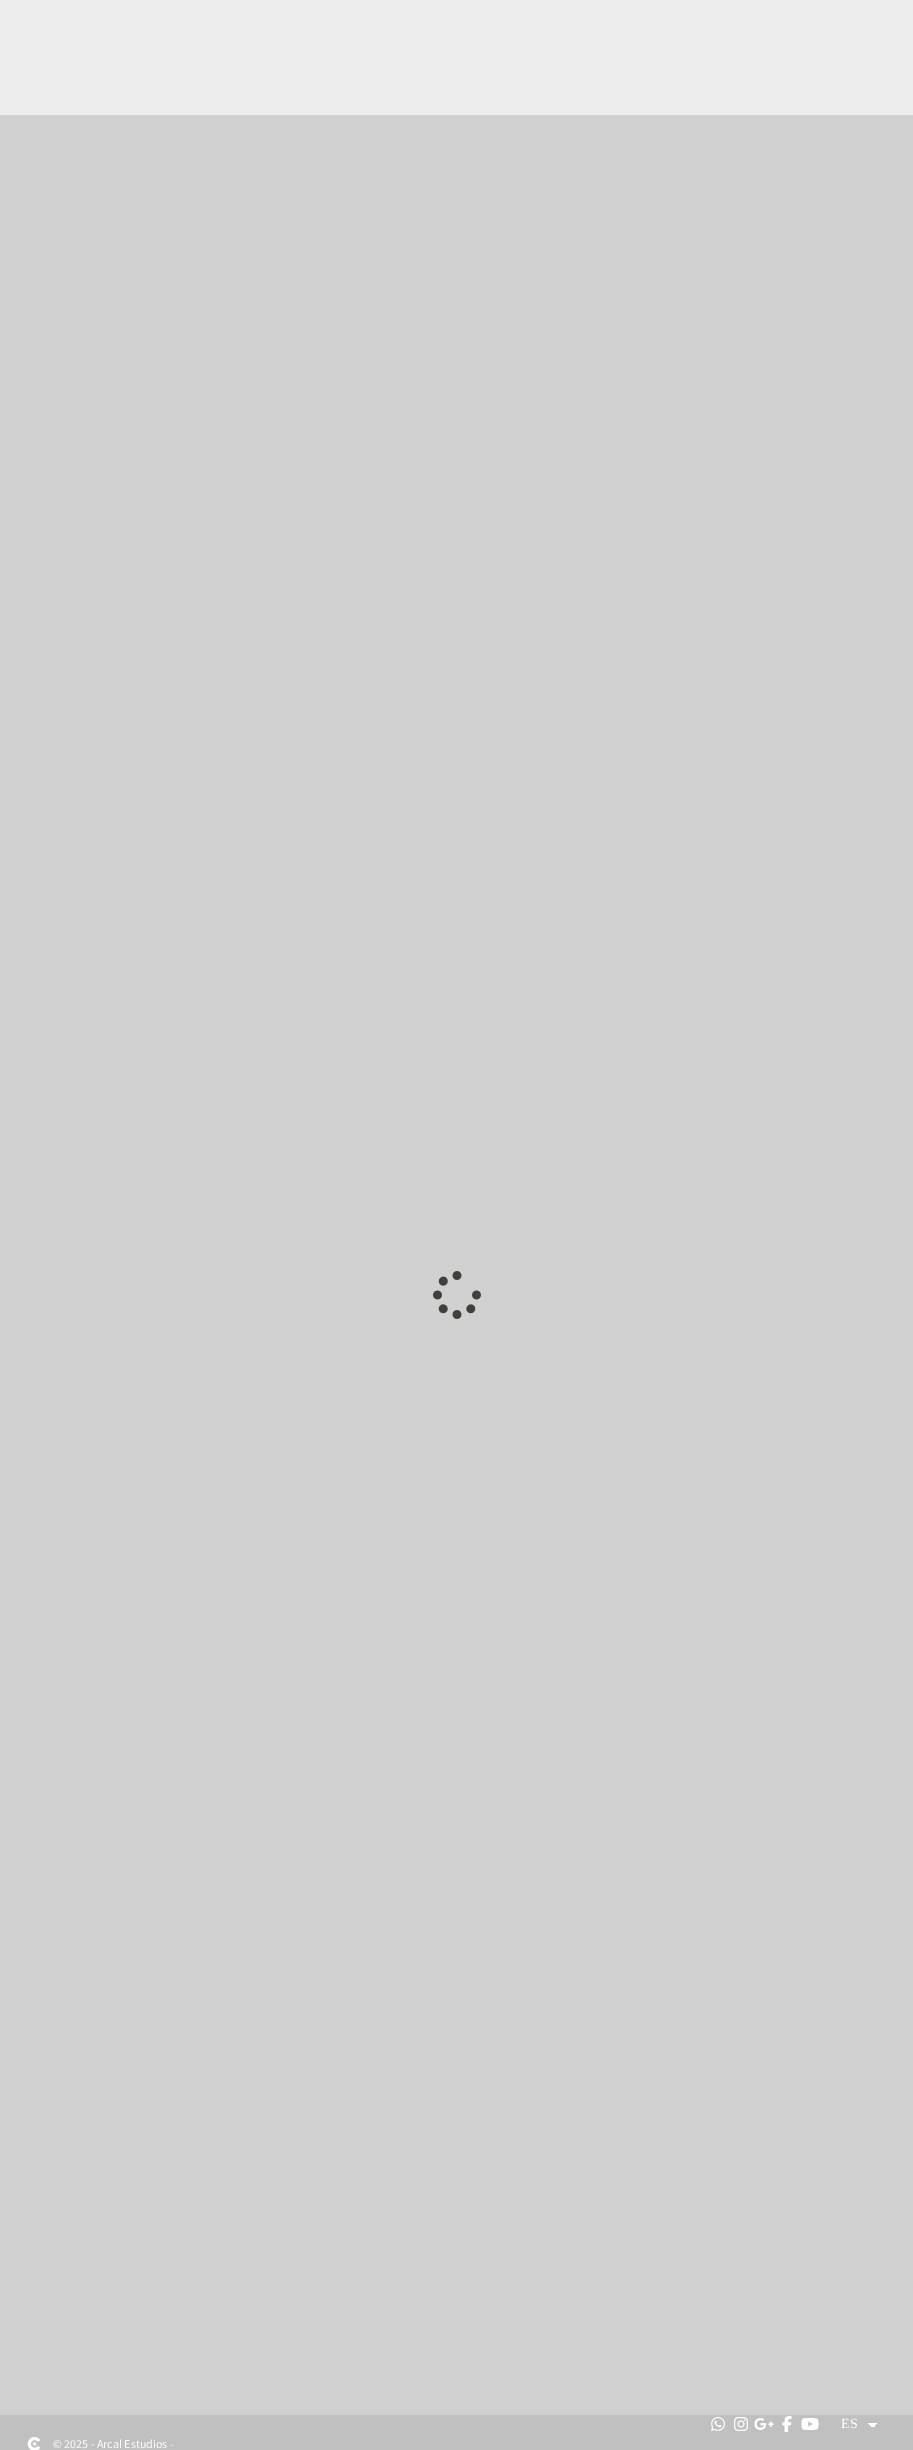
%!PS
<< /PageSize [913 2450] >> setpagedevice
/picture { 5 dict begin { /h /w /y /x /name } { exch def } forall
  gsave x y translate w h scale
  w h 8 [w 0 0 h 0 0] name (r) file false 3 colorimage grestore end } def
0 2450 translate 1 -1 scale
4 setmiterlimit
0.82 setgray
0 0 913 2450 rectfill
0.929 setgray
0 0 913 115 rectfill
(img1.rgb) 433 1271 48 48 picture
0.753 setgray
0 2415 913 35 rectfill
(img2.rgb) 711 2417 14 14 picture
(img3.rgb) 734 2417 14 14 picture
(img4.rgb) 754 2418 20 12 picture
(img5.rgb) 782 2416 10 16 picture
(img6.rgb) 801 2418 18 12 picture
gsave newpath 873 2423 moveto 878 2423 lineto 878 2427 lineto 873 2427 lineto closepath clip newpath
<< /ShadingType 2 /ColorSpace /DeviceRGB /Coords [873 2423 878 2428] /Extend [true true] /Function << /FunctionType 3 /Domain [0 1] /Functions [<< /FunctionType 2 /Domain [0 1] /C0 [1 1 1] /C1 [1 1 1] /N 1 >> << /FunctionType 2 /Domain [0 1] /C0 [0.753 0.753 0.753] /C1 [0.753 0.753 0.753] /N 1 >>] /Bounds [0.5] /Encode [0 1 0 1] >> >> shfill grestore
gsave newpath 868 2423 moveto 873 2423 lineto 873 2427 lineto 868 2427 lineto closepath clip newpath
<< /ShadingType 2 /ColorSpace /DeviceRGB /Coords [868 2428 873 2423] /Extend [true true] /Function << /FunctionType 3 /Domain [0 1] /Functions [<< /FunctionType 2 /Domain [0 1] /C0 [0.753 0.753 0.753] /C1 [0.753 0.753 0.753] /N 1 >> << /FunctionType 2 /Domain [0 1] /C0 [1 1 1] /C1 [1 1 1] /N 1 >>] /Bounds [0.5] /Encode [0 1 0 1] >> >> shfill grestore
/LiberationSerif-Regular [14 0 0 -14 0 0] selectfont
1 setgray
841 2428 moveto (ES) show
(img7.rgb) 27 2437 14 13 picture
/SourceSansPro-Regular [12 0 0 -12 0 0] selectfont
53 2448 moveto (© 2025 - Arcal Estudios) show
/SourceSansPro-Regular [11 0 0 -11 0 0] selectfont
170 2448 moveto (-) show
showpage
